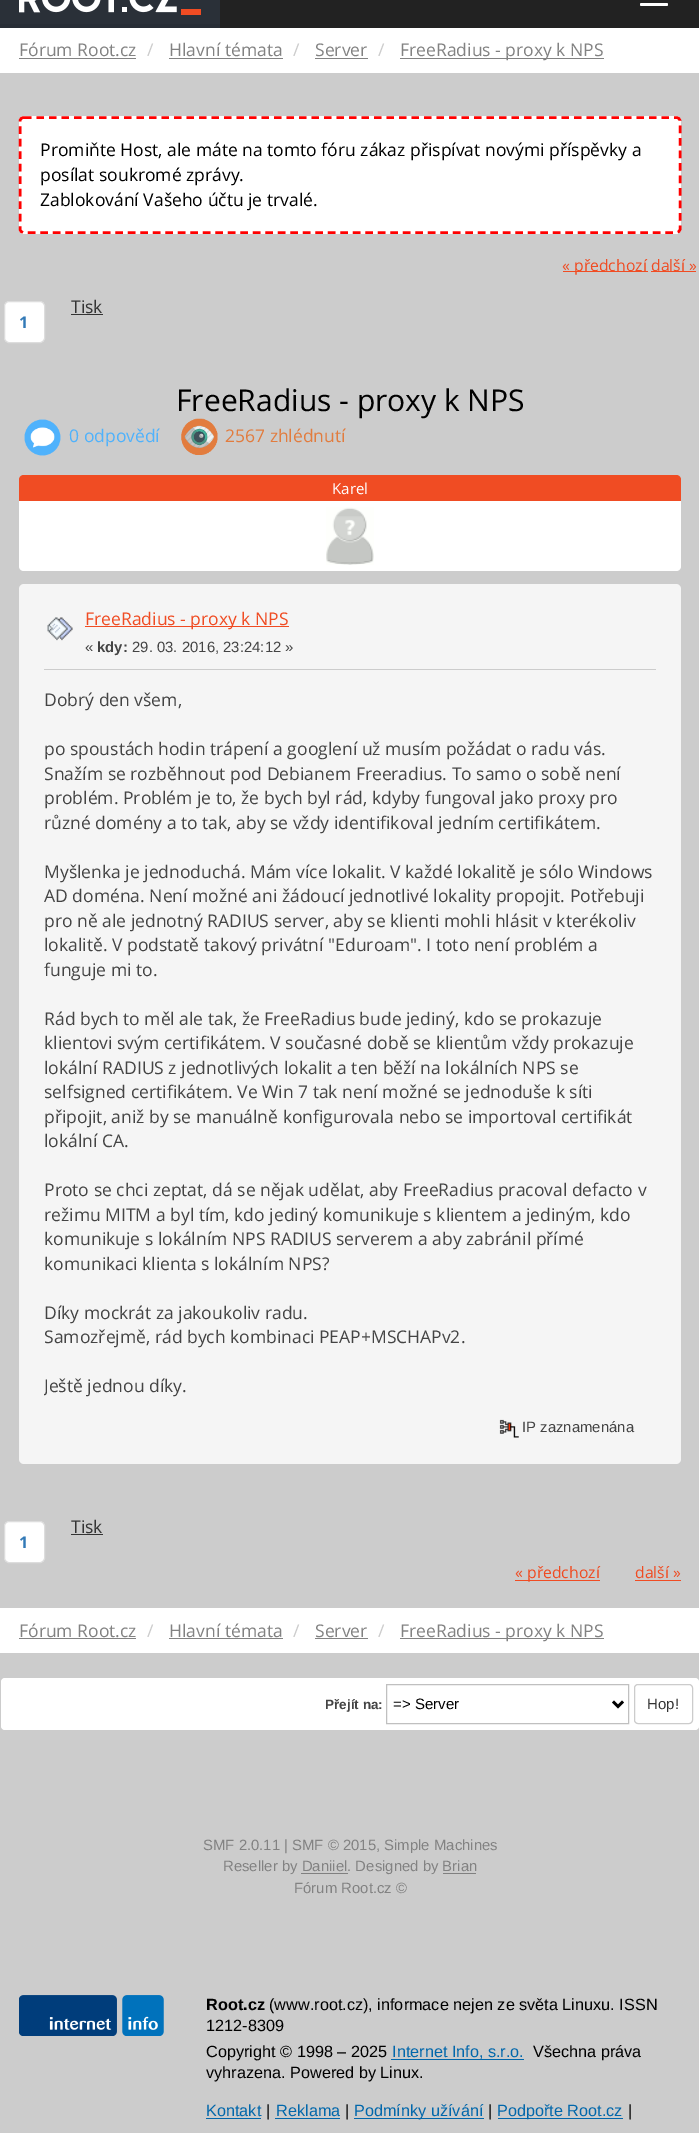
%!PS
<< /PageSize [699 2133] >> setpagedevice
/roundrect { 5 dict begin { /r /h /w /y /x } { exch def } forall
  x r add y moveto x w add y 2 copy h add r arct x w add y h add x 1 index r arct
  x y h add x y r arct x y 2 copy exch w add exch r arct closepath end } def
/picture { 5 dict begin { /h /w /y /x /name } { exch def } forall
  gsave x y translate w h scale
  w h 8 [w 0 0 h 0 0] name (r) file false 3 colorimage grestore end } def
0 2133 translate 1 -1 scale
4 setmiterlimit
0.8 setgray
0 0 699 2133 rectfill
0.133 setgray
220 0 479 28 rectfill
0.165 0.188 0.22 setrgbcolor
0 0 220 24 rectfill
0.153 0.176 0.208 setrgbcolor
0 24 220 4 rectfill
(img1.rgb) 19 0 182 15 picture
1 setgray
640 3 28 3 1.5 roundrect fill
0 28 699 45 rectfill
/OpenSans-Regular [17.5 0 0 -17.5 0 0] selectfont
0.51 setgray
19 56 moveto (Fórum Root.cz) show
19 58 117 1 rectfill
0.8 setgray
147 56 moveto (/) show
0.51 setgray
169 56 moveto (Hlavní témata) show
169 58 114 1 rectfill
0.8 setgray
293 56 moveto (/) show
0.51 setgray
315 56 moveto (Server) show
315 58 53 1 rectfill
0.8 setgray
378 56 moveto (/) show
0.51 setgray
400 58 204 1 rectfill
400 56 moveto (FreeRadius - proxy k NPS) show
1 setgray
19 116 662 118 5 roundrect fill
1 0 0 setrgbcolor
2.5 setlinewidth
[7.5 5] 0 setdash
newpath 24 117.5 moveto 676 117.5 lineto 678.5 117.5 680 119 680 121 curveto 680 229 lineto 680 231 678.5 232.5 676 232.5 curveto 24 232.5 lineto 21.5 232.5 20 231 20 229 curveto 20 121 lineto 20 119 21.5 117.5 24 117.5 curveto closepath stroke
0 setgray
40 156 moveto (Promiňte Host, ale máte na tomto fóru zákaz přispívat novými příspěvky a) show
40 181 moveto (posílat soukromé zprávy.) show
40 206 moveto (Zablokování Vašeho účtu je trvalé.) show
0.941 0.298 0.137 setrgbcolor
563 271 85 1 rectfill
/OpenSans-Regular [15.75 0 0 -15.75 0 0] selectfont
562 271 moveto (« předchozí) show
651 271 45 1 rectfill
651 271 moveto (další ») show
/OpenSans-Regular [17.5 0 0 -17.5 0 0] selectfont
0.2 setgray
71 313 moveto (Tisk) show
71 314 32 1 rectfill
1 setgray
4.5 301.5 40 41 4.5 roundrect gsave fill grestore
0.867 setgray
1 setlinewidth
[] 0 setdash
stroke
/OpenSans-Bold [16.25 0 0 -16.25 0 0] selectfont
0.2 0.478 0.718 setrgbcolor
19 328 moveto (1) show
(img3.rgb) 181 418 37 37 picture
/OpenSans-Regular [30 0 0 -30 0 0] selectfont
0 setgray
176 411 moveto (FreeRadius - proxy k NPS) show
(img2.rgb) 24 419 37 37 picture
/OpenSans-Regular [17.5 0 0 -17.5 0 0] selectfont
0.31 0.698 0.988 setrgbcolor
69 442 moveto (0 odpovědí) show
0.886 0.486 0.243 setrgbcolor
225 442 moveto (2567 zhlédnutí) show
0.941 0.298 0.137 setrgbcolor
newpath 24 475 moveto 676 475 lineto 679 475 681 477 681 480 curveto 681 501 lineto 19 501 lineto 19 480 lineto 19 477 21 475 24 475 curveto closepath fill
/OpenSans-Regular [15 0 0 -15 0 0] selectfont
1 setgray
332 494 moveto (Karel) show
newpath 19 501 moveto 681 501 lineto 681 566 lineto 681 569 679 571 676 571 curveto 24 571 lineto 21 571 19 569 19 566 curveto closepath fill
(img4.rgb) 326 507 48 58 picture
0.961 setgray
19 584 662 880 5 roundrect fill
(img5.rgb) 47 617 26 24 picture
0.941 0.298 0.137 setrgbcolor
85 626 204 1 rectfill
/OpenSans-Regular [17.5 0 0 -17.5 0 0] selectfont
85 625 moveto (FreeRadius - proxy k NPS) show
/LiberationSans-Regular [14.9 0 0 -14.9 0 0] selectfont
0.267 setgray
85 652 moveto («) show
/LiberationSans-Bold [14.9 0 0 -14.9 0 0] selectfont
97 652 moveto (kdy:) show
/LiberationSans-Regular [14.9 0 0 -14.9 0 0] selectfont
132 652 moveto (29. 03. 2016, 23:24:12 ») show
0.8 setgray
44 669 612 1 rectfill
/OpenSans-Regular [17.5 0 0 -17.5 0 0] selectfont
0.267 setgray
44 706 moveto (Dobrý den všem,) show
44 755 moveto (po spoustách hodin trápení a googlení už musím požádat o radu vás.) show
44 780 moveto (Snažím se rozběhnout pod Debianem Freeradius. To samo o sobě není) show
44 804 moveto (problém. Problém je to, že bych byl rád, kdyby fungoval jako proxy pro) show
44 829 moveto (různé domény a to tak, aby se vždy identifikoval jedním certifikátem.) show
44 878 moveto (Myšlenka je jednoduchá. Mám více lokalit. V každé lokalitě je sólo Windows) show
44 902 moveto (AD doména. Není možné ani žádoucí jednotlivé lokality propojit. Potřebuji) show
44 927 moveto (pro ně ale jednotný RADIUS server, aby se klienti mohli hlásit v kterékoliv) show
44 951 moveto (lokalitě. V podstatě takový privátní "Eduroam". I toto není problém a) show
44 976 moveto (funguje mi to.) show
44 1025 moveto (Rád bych to měl ale tak, že FreeRadius bude jediný, kdo se prokazuje) show
44 1049 moveto (klientovi svým certifikátem. V současné době se klientům vždy prokazuje) show
44 1074 moveto (lokální RADIUS z jednotlivých lokalit a ten běží na lokálních NPS se) show
44 1098 moveto (selfsigned certifikátem. Ve Win 7 tak není možné se jednoduše k síti) show
44 1123 moveto (připojit, aniž by se manuálně konfigurovala nebo se importoval certifikát) show
44 1147 moveto (lokální CA.) show
44 1196 moveto (Proto se chci zeptat, dá se nějak udělat, aby FreeRadius pracoval defacto v) show
44 1221 moveto (režimu MITM a byl tím, kdo jediný komunikuje s klientem a jediným, kdo) show
44 1245 moveto (komunikuje s lokálním NPS RADIUS serverem a aby zabránil přímé) show
44 1270 moveto (komunikaci klienta s lokálním NPS?) show
44 1319 moveto (Díky mockrát za jakoukoliv radu.) show
44 1343 moveto (Samozřejmě, rád bych kombinaci PEAP+MSCHAPv2.) show
gsave
44 668 612 750 rectclip
44 1392 moveto (Ještě jednou díky.) show
grestore
(img6.rgb) 499 1419 20 19 picture
/LiberationSans-Regular [14.9 0 0 -14.9 0 0] selectfont
522 1432 moveto (IP zaznamenána) show
/OpenSans-Regular [17.5 0 0 -17.5 0 0] selectfont
0.2 setgray
71 1533 moveto (Tisk) show
71 1534 32 1 rectfill
1 setgray
4.5 1521.5 40 41 4.5 roundrect gsave fill grestore
0.867 setgray
stroke
/OpenSans-Bold [16.25 0 0 -16.25 0 0] selectfont
0.2 0.478 0.718 setrgbcolor
19 1548 moveto (1) show
0.941 0.298 0.137 setrgbcolor
515 1580 85 1 rectfill
/OpenSans-Regular [15.75 0 0 -15.75 0 0] selectfont
515 1578 moveto (« předchozí) show
635 1578 moveto (další ») show
635 1580 46 1 rectfill
1 setgray
0 1608 699 45 rectfill
/OpenSans-Regular [17.5 0 0 -17.5 0 0] selectfont
0.51 setgray
19 1637 moveto (Fórum Root.cz) show
19 1638 117 1 rectfill
0.8 setgray
147 1637 moveto (/) show
0.51 setgray
169 1637 moveto (Hlavní témata) show
169 1638 114 1 rectfill
0.8 setgray
293 1637 moveto (/) show
0.51 setgray
315 1637 moveto (Server) show
315 1638 53 1 rectfill
0.8 setgray
378 1637 moveto (/) show
0.51 setgray
400 1638 204 1 rectfill
400 1637 moveto (FreeRadius - proxy k NPS) show
1 setgray
1 1678 698 52 4 roundrect fill
/LiberationSans-Bold [13.5 0 0 -13.5 0 0] selectfont
0.267 setgray
325 1709 moveto (Přejít na:) show
0.753 setgray
386.5 1684.5 242 39 rectstroke
0 setgray
2.5 setlinewidth
newpath 613 1701.5 moveto 618 1706.5 lineto 623 1701.5 lineto stroke
/LiberationSans-Regular [15 0 0 -15 0 0] selectfont
393 1709 moveto (=> Server) show
0.8 setgray
1 setlinewidth
634.5 1684.5 58 39 3.5 roundrect stroke
0.2 setgray
647 1709 moveto (Hop!) show
/LiberationSans-Regular [14.9 0 0 -14.9 0 0] selectfont
0.51 setgray
203 1850 moveto (SMF 2.0.11 | SMF © 2015, Simple Machines) show
223 1871 moveto (Reseller by Daniiel. Designed by Brian) show
0.502 setgray
301 1873 47 1 rectfill
443 1873 33 1 rectfill
0.51 setgray
294 1893 moveto (Fórum Root.cz ©) show
(img7.rgb) 19 1995 145 41 picture
/LiberationSans-Bold [16.25 0 0 -16.25 0 0] selectfont
0 setgray
206 2010 moveto (Root.cz) show
/LiberationSans-Regular [16.25 0 0 -16.25 0 0] selectfont
269 2010 moveto (\(www.root.cz\), informace nejen ze světa Linuxu. ISSN) show
206 2031 moveto (1212-8309) show
206 2057 moveto (Copyright © 1998 – 2025) show
0.004 0.404 0.671 setrgbcolor
391 2059 133 1 rectfill
392 2057 moveto (Internet Info, s.r.o.) show
0 setgray
533 2057 moveto (Všechna práva) show
206 2078 moveto (vyhrazena. Powered by Linux.) show
0.004 0.404 0.671 setrgbcolor
206 2116 moveto (Kontakt) show
206 2118 55 1 rectfill
0 setgray
266 2116 moveto (|) show
0.004 0.404 0.671 setrgbcolor
276 2116 moveto (Reklama) show
275 2118 65 1 rectfill
0 setgray
345 2116 moveto (|) show
0.004 0.404 0.671 setrgbcolor
354 2118 130 1 rectfill
354 2116 moveto (Podmínky užívání) show
0 setgray
488 2116 moveto (|) show
0.004 0.404 0.671 setrgbcolor
498 2118 125 1 rectfill
497 2116 moveto (Podpořte Root.cz) show
0 setgray
628 2116 moveto (|) show
showpage
